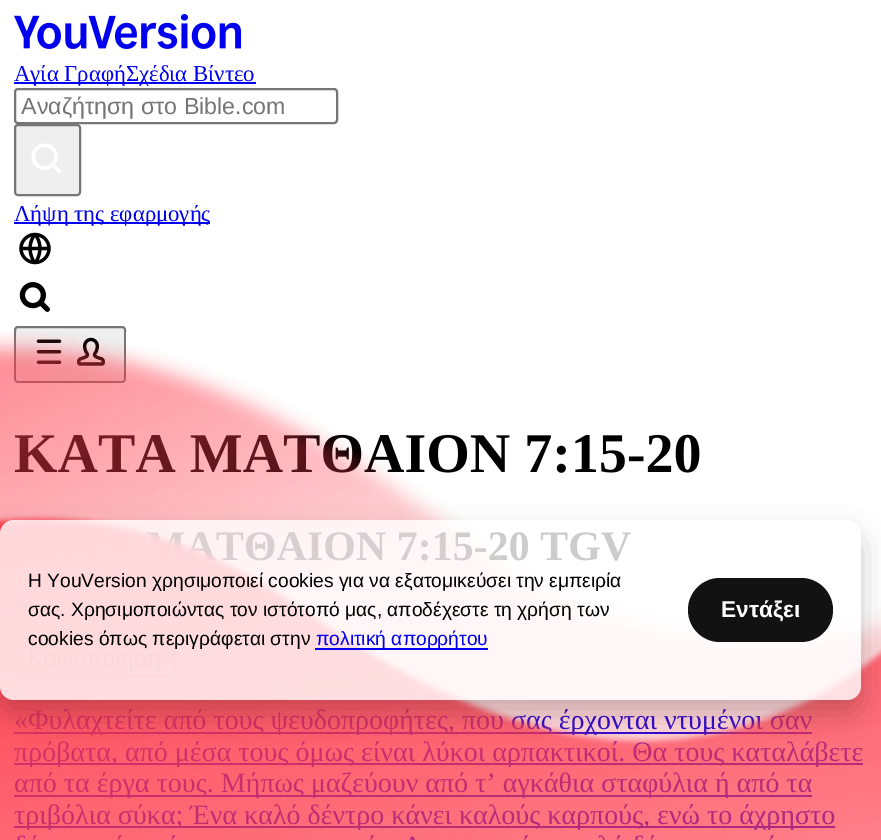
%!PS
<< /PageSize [881 840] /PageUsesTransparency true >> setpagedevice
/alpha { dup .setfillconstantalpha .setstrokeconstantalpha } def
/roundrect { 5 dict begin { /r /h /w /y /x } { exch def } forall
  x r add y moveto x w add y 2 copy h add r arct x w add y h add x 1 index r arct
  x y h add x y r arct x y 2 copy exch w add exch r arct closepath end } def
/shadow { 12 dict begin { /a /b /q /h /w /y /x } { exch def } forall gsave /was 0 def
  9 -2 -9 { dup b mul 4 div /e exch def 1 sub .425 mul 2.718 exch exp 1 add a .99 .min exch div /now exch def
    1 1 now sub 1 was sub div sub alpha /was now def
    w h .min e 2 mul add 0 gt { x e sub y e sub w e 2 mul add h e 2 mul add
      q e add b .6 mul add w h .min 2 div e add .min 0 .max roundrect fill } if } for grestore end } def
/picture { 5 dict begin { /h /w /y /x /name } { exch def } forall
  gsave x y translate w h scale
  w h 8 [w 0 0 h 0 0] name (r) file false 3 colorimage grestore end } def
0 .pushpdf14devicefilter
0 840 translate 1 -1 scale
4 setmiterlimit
1 setgray
0 0 881 840 rectfill
(img1.rgb) 14 14 228 35 picture
0 0 0.933 setrgbcolor
14 82 242 2 rectfill
/LiberationSerif-Regular [22.75 0 0 -22.75 0 0] selectfont
14 81 moveto (Αγία ΓραφήΣχέδια Βίντεο) show
0.463 setgray
2 setlinewidth
15 89 322 34 3 roundrect stroke
/LiberationSans-Regular [23.25 0 0 -23.25 0 0] selectfont
0.459 setgray
21 114 moveto (Αναζήτηση στο Bible.com) show
0.937 setgray
15 125 65 70 3 roundrect gsave fill grestore
0.463 setgray
stroke
(img2.rgb) 31 143 31 31 picture
0 0 0.933 setrgbcolor
14 222 196 2 rectfill
/LiberationSerif-Regular [22.75 0 0 -22.75 0 0] selectfont
14 221 moveto (Λήψη της εφαρμογής) show
(img3.rgb) 19 232 32 33 picture
(img4.rgb) 19 282 31 30 picture
0.937 setgray
15 327 110 55 3 roundrect gsave fill grestore
0.463 setgray
stroke
(img5.rgb) 36 339 26 25 picture
(img6.rgb) 77 337 28 29 picture
/LiberationSerif-Bold [56 0 0 -56 0 0] selectfont
0 setgray
14 472 moveto (ΚΑΤΑ ΜΑΤΘΑΙΟΝ 7:15-20) show
0.463 setgray
15 607 159 69 3 roundrect stroke
(img8.rgb) 84 615 19 21 picture
0 0 0.933 setrgbcolor
14 732 798 2 rectfill
/LiberationSerif-Regular [28 0 0 -28 0 0] selectfont
490 729 moveto (υ σας έρχονται ντυμένοι σ) show
14 826 821 2 rectfill
632 824 moveto (ς, ενώ το άχρηστο) show
14 795 798 2 rectfill
(img7.rgb) 0 332 881 508 picture
gsave
newpath 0 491 moveto 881 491 lineto 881 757 lineto 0 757 lineto closepath 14 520 moveto 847 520 lineto 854.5 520 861 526.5 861 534 curveto 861 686 lineto 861 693.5 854.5 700 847 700 curveto 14 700 lineto 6.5 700 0 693.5 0 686 curveto 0 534 lineto 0 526.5 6.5 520 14 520 curveto closepath eoclip newpath
0 setgray
0 534 861 180 14 14 0.2 shadow
grestore
0.8 alpha
1 setgray
0 520 861 180 14 roundrect fill
/LiberationSans-Regular [19.25 0 0 -19.25 0 0] selectfont
1 alpha
0 setgray
28 587 moveto (Η YouVersion χρησιμοποιεί cookies για να εξατομικεύσει την εμπειρία) show
28 616 moveto (σας. Χρησιμοποιώντας τον ιστότοπό μας, αποδέχεστε τη χρήση των) show
28 645 moveto (cookies όπως περιγράφεται στην) show
0 0 0.933 setrgbcolor
315 648 173 2 rectfill
316 645 moveto (πολιτική απορρήτου) show
0.071 setgray
688 578 145 64 32 roundrect fill
/LiberationSans-Bold [22.75 0 0 -22.75 0 0] selectfont
1 setgray
721 617 moveto (Εντάξει) show
.poppdf14devicefilter showpage
